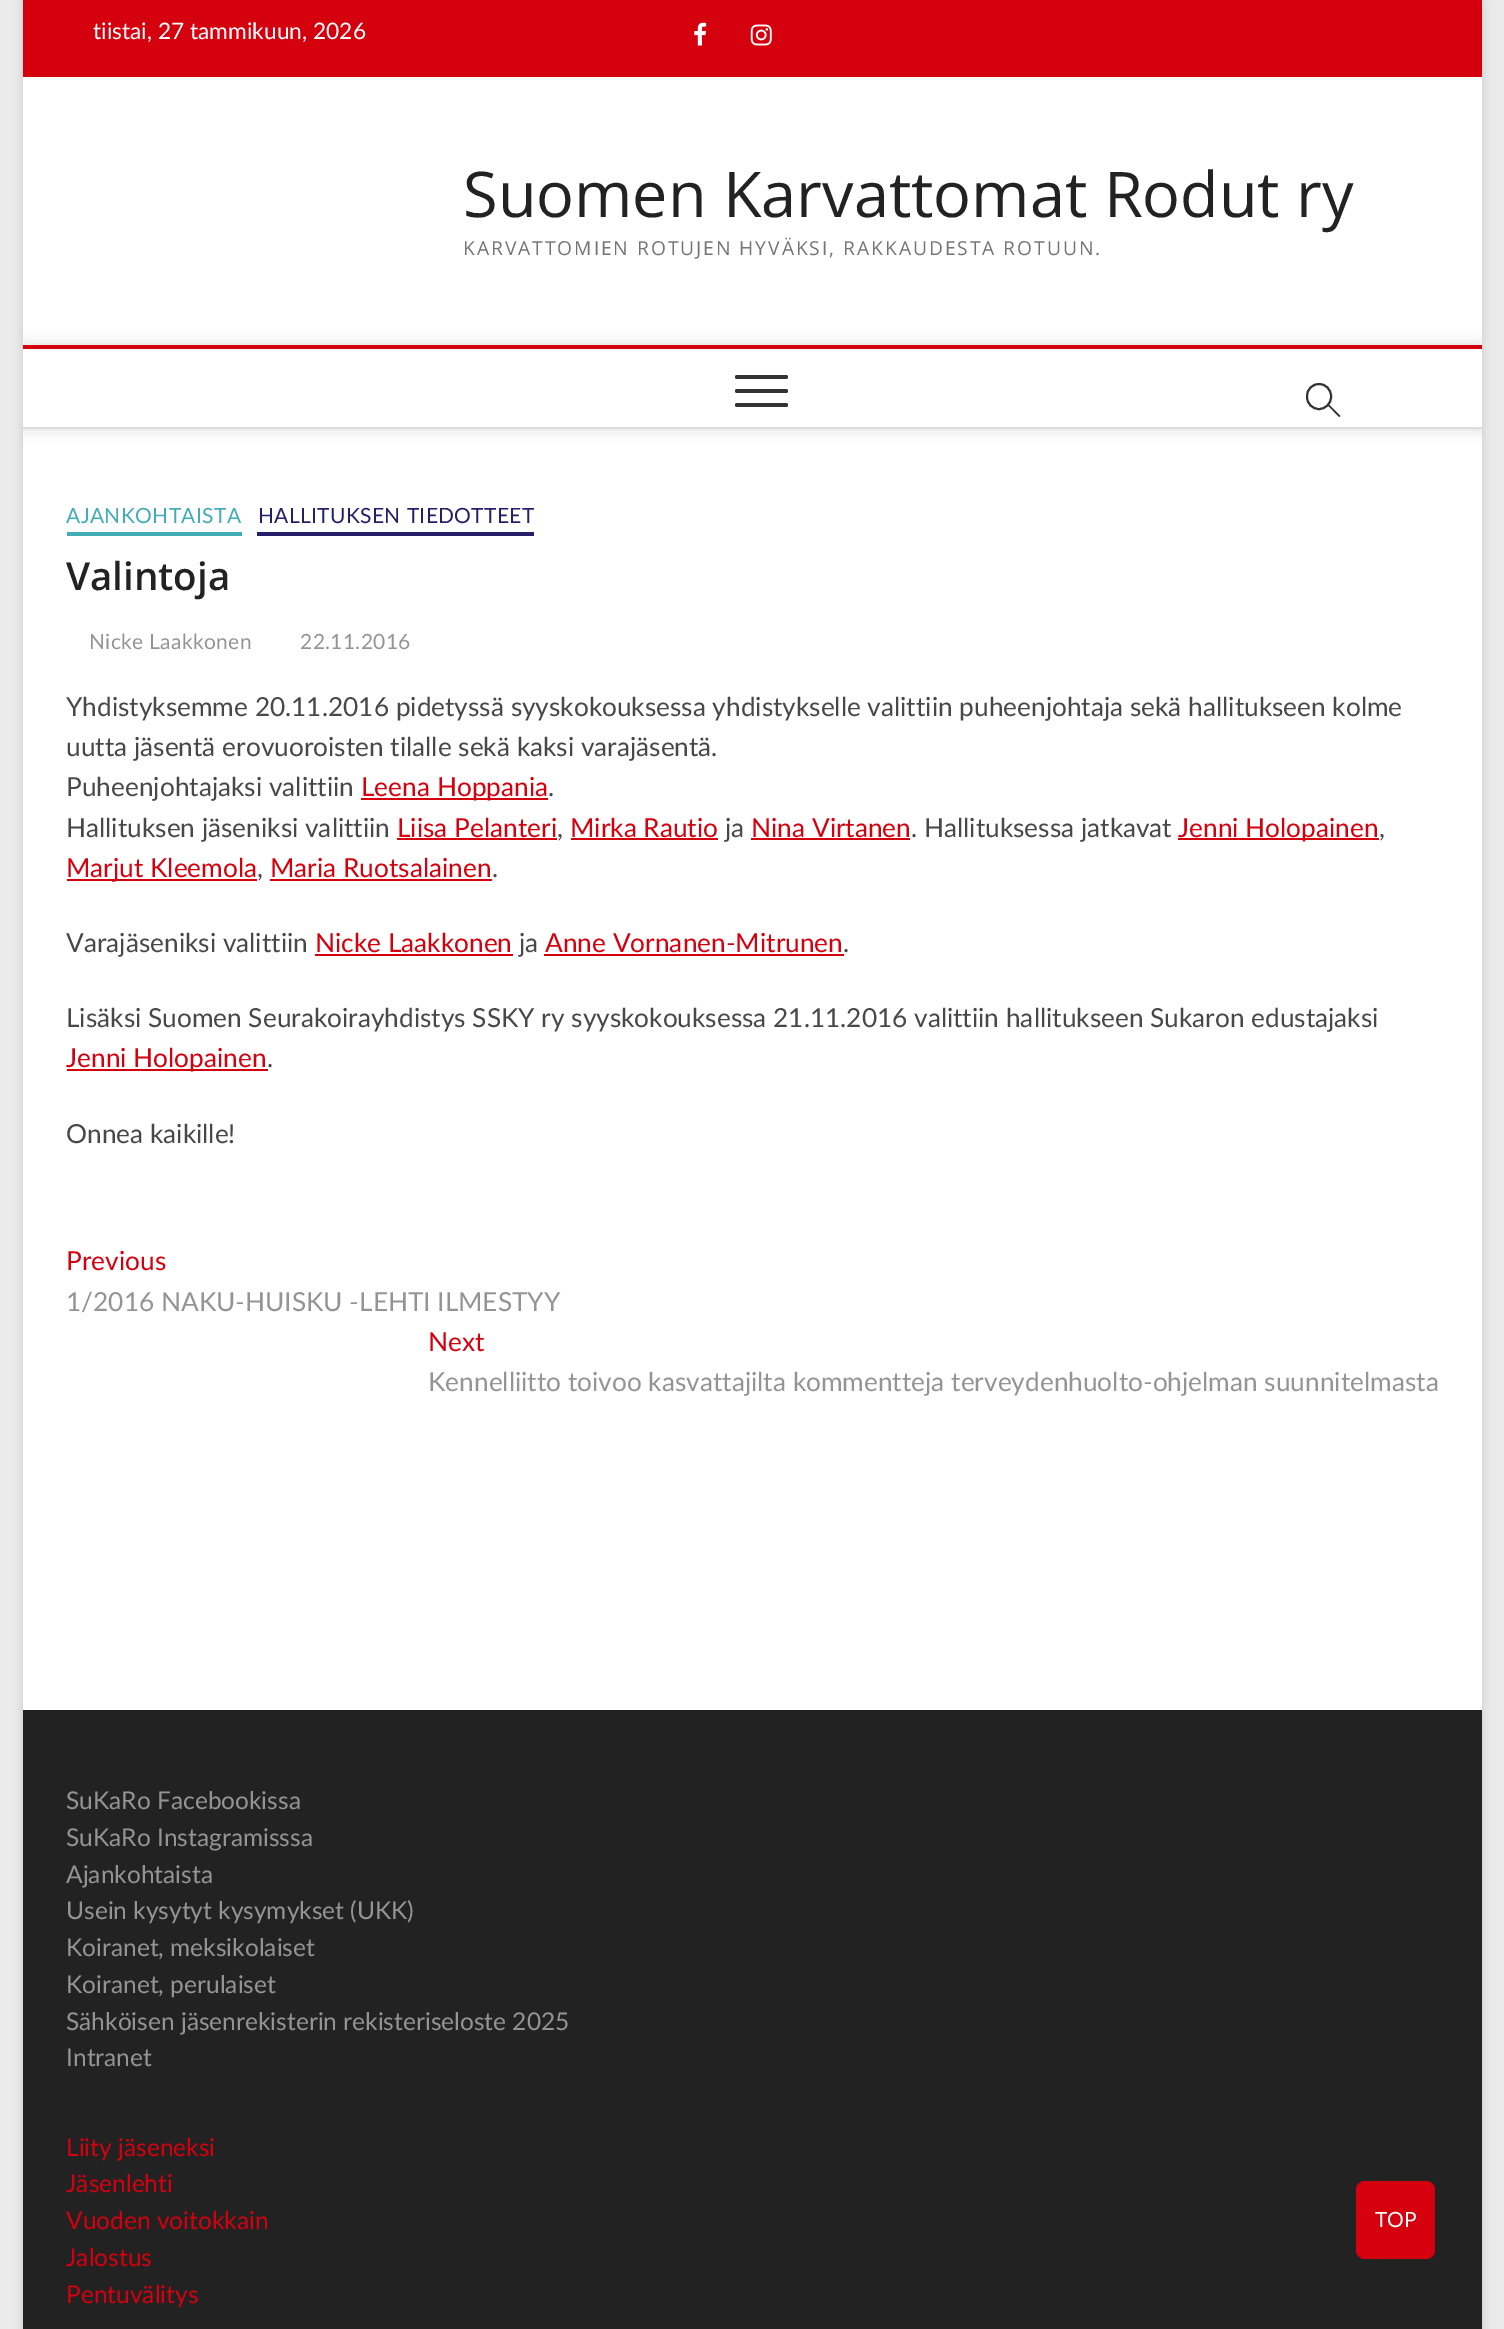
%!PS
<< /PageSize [1504 2329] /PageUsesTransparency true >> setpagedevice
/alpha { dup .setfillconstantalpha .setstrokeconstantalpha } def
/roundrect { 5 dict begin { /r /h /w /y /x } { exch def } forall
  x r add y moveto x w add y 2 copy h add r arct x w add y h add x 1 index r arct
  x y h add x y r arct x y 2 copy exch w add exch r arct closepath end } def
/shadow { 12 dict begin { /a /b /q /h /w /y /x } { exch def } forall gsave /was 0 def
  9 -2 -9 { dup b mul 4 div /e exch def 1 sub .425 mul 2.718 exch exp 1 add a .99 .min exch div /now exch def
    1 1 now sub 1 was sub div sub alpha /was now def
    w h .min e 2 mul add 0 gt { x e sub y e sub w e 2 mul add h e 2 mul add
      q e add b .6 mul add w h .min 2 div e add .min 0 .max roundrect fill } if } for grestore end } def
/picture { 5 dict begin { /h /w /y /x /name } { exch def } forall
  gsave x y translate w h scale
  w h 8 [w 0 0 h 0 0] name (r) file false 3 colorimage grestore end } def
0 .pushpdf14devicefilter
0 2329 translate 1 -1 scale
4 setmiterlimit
0.922 setgray
0 0 1504 2329 rectfill
0 setgray
23 2 1459 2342 0 5 0.15 shadow
1 setgray
23 77 1459 1633 rectfill
0.831 0 0.055 setrgbcolor
23 0 1459 77 rectfill
/Lato-Regular [22.75 0 0 -22.75 0 0] selectfont
1 setgray
93 39 moveto (tiistai, 27 tammikuun, 2026) show
(img1.rgb) 694 22 13 24 picture
(img2.rgb) 750 24 22 22 picture
/OpenSans-Regular [63 0 0 -63 0 0] selectfont
0.133 setgray
463 217 moveto (Suomen Karvattomat Rodut ry) show
/OpenSans-Regular [19.25 0 0 -19.25 0 0] selectfont
0.455 setgray
463 255 moveto 1.95 0 (KARVATTOMIEN ROTUJEN HYVÄKSI, RAKKAUDESTA ROTUUN.) ashow
gsave
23 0 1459 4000 rectclip
0 setgray
23 345 1459 84 0 7 0.15 shadow
grestore
1 setgray
23 349 1459 78 rectfill
0.831 0 0.055 setrgbcolor
23 345 1459 4 rectfill
0.867 setgray
23 427 1459 2 rectfill
0.2 setgray
735 389 53 4 2 roundrect fill
735 375 53 4 2 roundrect fill
735 403 53 4 2 roundrect fill
2 setlinewidth
1307 384 24 25 12 roundrect stroke
newpath 1327 404.5 moveto 1328 403.5 lineto 1340.5 416 lineto 1339 417 lineto closepath fill
/Lato-Regular [21 0 0 -21 0 0] selectfont
0.259 0.678 0.714 setrgbcolor
66 523 moveto 0.35 0 (AJANKOHTAISTA) ashow
67 532 175 4 rectfill
0.145 0.122 0.42 setrgbcolor
258 523 moveto 0.35 0 (HALLITUKSEN TIEDOTTEET) ashow
257 532 277 4 rectfill
/OpenSans-SemiBold [38.5 0 0 -38.5 0 0] selectfont
0.133 setgray
66 590 moveto (Valintoja) show
/Lato-Regular [21 0 0 -21 0 0] selectfont
0.58 setgray
89 649 moveto 0.35 0 (Nicke Laakkonen) ashow
300 649 moveto 0.35 0 (22.11.2016) ashow
/Lato-Regular [26.25 0 0 -26.25 0 0] selectfont
0.282 setgray
66 716 moveto (Yhdistyksemme 20.11.2016 pidetyssä syyskokouksessa yhdistykselle valittiin puheenjohtaja sekä hallitukseen kolme) show
66 756 moveto (uutta jäsentä erovuoroisten tilalle sekä kaksi varajäsentä.) show
66 796 moveto (Puheenjohtajaksi valittiin) show
0.831 0 0.055 setrgbcolor
361 798 187 2 rectfill
361 796 moveto (Leena Hoppania) show
0.282 setgray
548 796 moveto (.) show
66 837 moveto (Hallituksen jäseniksi valittiin) show
0.831 0 0.055 setrgbcolor
397 837 moveto (Liisa Pelanteri) show
397 838 160 2 rectfill
0.282 setgray
557 837 moveto (,) show
0.831 0 0.055 setrgbcolor
570 837 moveto (Mirka Rautio) show
571 838 147 2 rectfill
0.282 setgray
725 837 moveto (ja) show
0.831 0 0.055 setrgbcolor
751 837 moveto (Nina Virtanen) show
751 838 159 2 rectfill
0.282 setgray
911 837 moveto (. Hallituksessa jatkavat) show
0.831 0 0.055 setrgbcolor
1178 838 201 2 rectfill
1178 837 moveto (Jenni Holopainen) show
0.282 setgray
1379 837 moveto (,) show
0.831 0 0.055 setrgbcolor
67 879 190 2 rectfill
66 877 moveto (Marjut Kleemola) show
0.282 setgray
257 877 moveto (,) show
0.831 0 0.055 setrgbcolor
270 877 moveto (Maria Ruotsalainen) show
270 879 222 2 rectfill
0.282 setgray
492 877 moveto (.) show
66 952 moveto (Varajäseniksi valittiin) show
0.831 0 0.055 setrgbcolor
315 952 moveto (Nicke Laakkonen) show
315 954 198 2 rectfill
0.282 setgray
519 952 moveto (ja) show
0.831 0 0.055 setrgbcolor
545 952 moveto (Anne Vornanen-Mitrunen) show
544 954 300 2 rectfill
0.282 setgray
843 952 moveto (.) show
66 1027 moveto (Lisäksi Suomen Seurakoirayhdistys SSKY ry syyskokouksessa 21.11.2016 valittiin hallitukseen Sukaron edustajaksi) show
0.831 0 0.055 setrgbcolor
67 1069 201 2 rectfill
66 1067 moveto (Jenni Holopainen) show
0.282 setgray
267 1067 moveto (.) show
66 1143 moveto (Onnea kaikille!) show
0.831 0 0.055 setrgbcolor
66 1270 moveto (Previous) show
0.58 setgray
66 1311 moveto (1/2016 NAKU-HUISKU -LEHTI ILMESTYY) show
0.831 0 0.055 setrgbcolor
428 1351 moveto (Next) show
0.58 setgray
428 1391 moveto (Kennelliitto toivoo kasvattajilta kommentteja terveydenhuolto-ohjelman suunnitelmasta) show
0.133 setgray
23 1712 1459 617 rectfill
0.125 setgray
23 1710 1459 2 rectfill
/Lato-Regular [24.5 0 0 -24.5 0 0] selectfont
0.58 setgray
66 1809 moveto (SuKaRo Facebookissa) show
66 1846 moveto (SuKaRo Instagramisssa) show
66 1883 moveto (Ajankohtaista) show
66 1919 moveto (Usein kysytyt kysymykset \(UKK\)) show
66 1956 moveto (Koiranet, meksikolaiset) show
66 1993 moveto (Koiranet, perulaiset) show
66 2030 moveto (Sähköisen jäsenrekisterin rekisteriseloste 2025) show
66 2066 moveto (Intranet) show
0.831 0 0.055 setrgbcolor
66 2156 moveto (Liity jäseneksi) show
66 2192 moveto (Jäsenlehti) show
66 2229 moveto (Vuoden voitokkain) show
66 2266 moveto (Jalostus) show
66 2303 moveto (Pentuvälitys) show
1356 2181 79 78 9 roundrect fill
/Lato-Regular [21 0 0 -21 0 0] selectfont
1 setgray
1375 2227 moveto (TOP) show
.poppdf14devicefilter showpage
